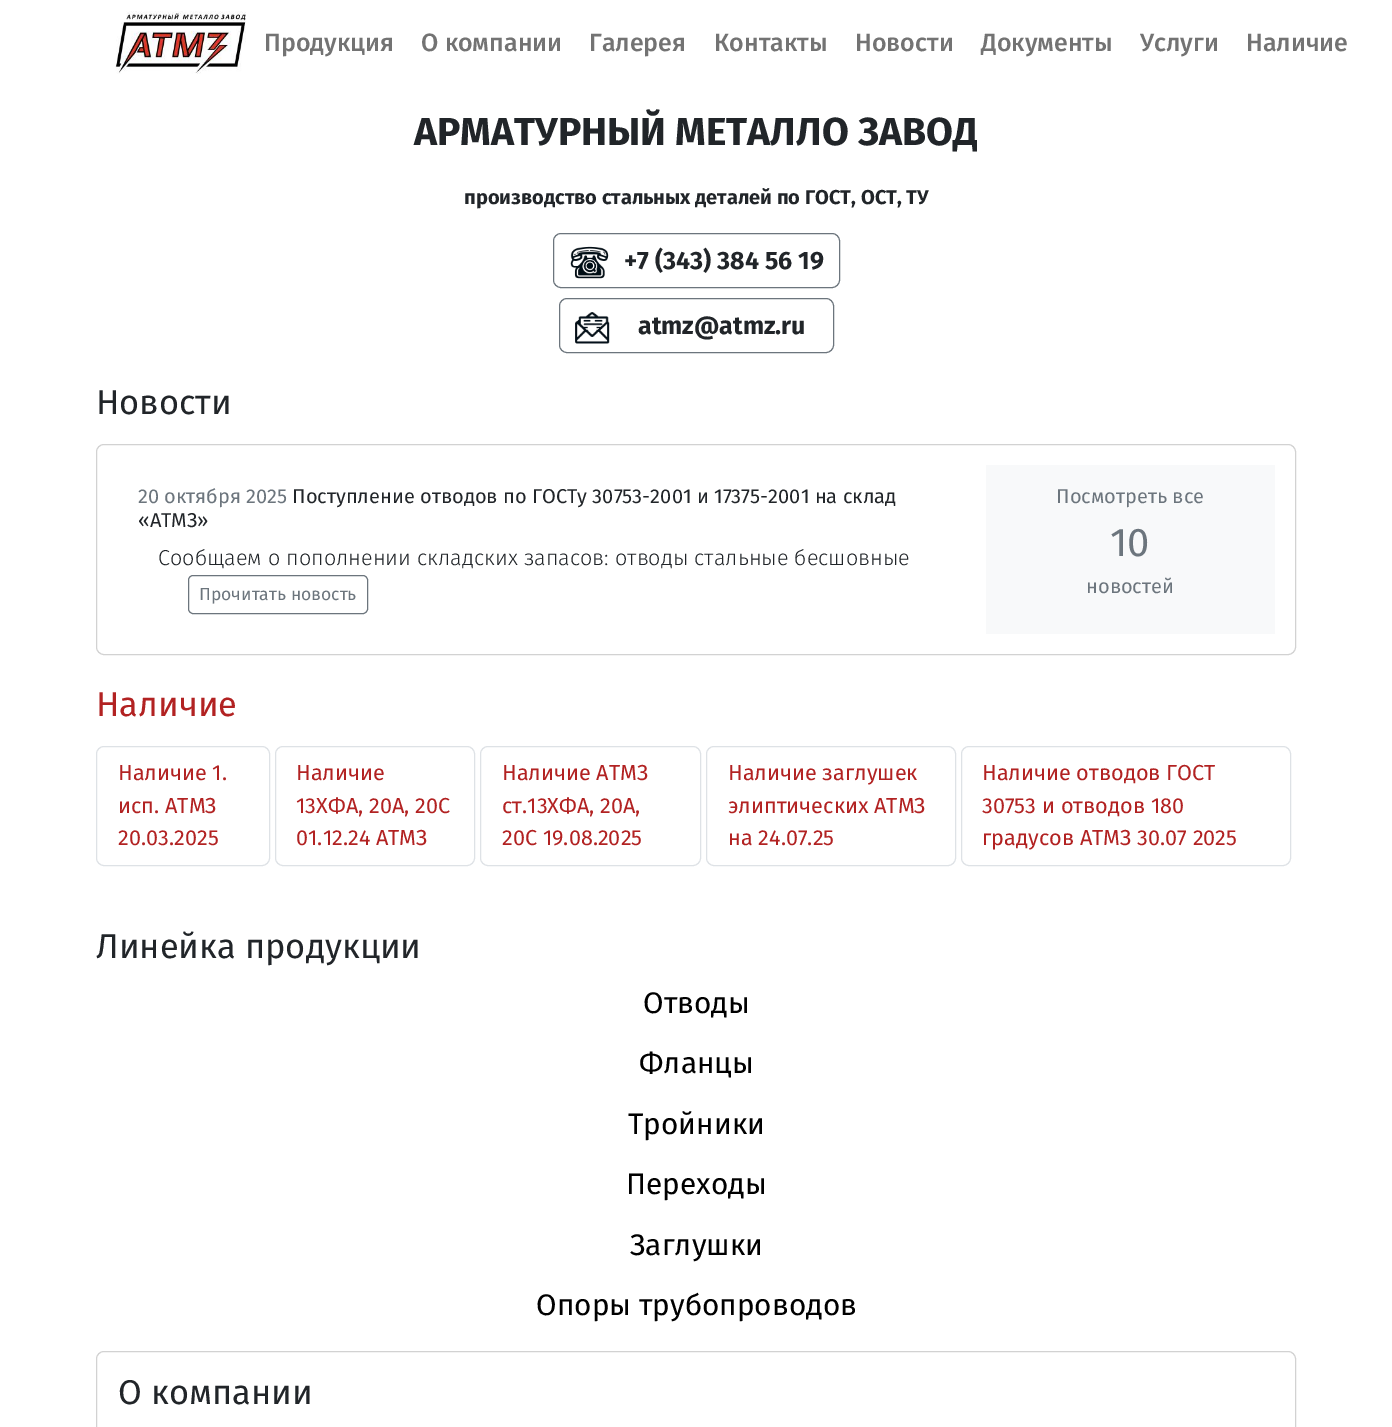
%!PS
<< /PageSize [1392 1427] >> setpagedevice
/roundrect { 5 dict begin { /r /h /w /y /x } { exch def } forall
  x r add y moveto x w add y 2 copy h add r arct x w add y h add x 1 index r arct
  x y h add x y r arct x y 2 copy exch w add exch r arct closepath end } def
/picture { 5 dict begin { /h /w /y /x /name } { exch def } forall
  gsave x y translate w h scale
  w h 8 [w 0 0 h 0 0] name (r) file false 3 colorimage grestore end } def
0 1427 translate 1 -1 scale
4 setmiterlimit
1 setgray
0 0 1392 1427 rectfill
(img1.rgb) 115 11 131 63 picture
/FiraSans-Medium [25 0 0 -25 0 0] selectfont
0.451 setgray
264 51 moveto (Продукция) show
421 51 moveto (О компании) show
589 51 moveto (Галерея) show
714 51 moveto (Контакты) show
855 51 moveto (Новости) show
981 51 moveto (Документы) show
1140 51 moveto (Услуги) show
1246 51 moveto (Наличие) show
/FiraSans-Bold [39 0 0 -39 0 0] selectfont
0.129 0.145 0.161 setrgbcolor
414 145 moveto (АРМАТУРНЫЙ МЕТАЛЛО ЗАВОД) show
/FiraSans-Bold [20 0 0 -20 0 0] selectfont
464 204 moveto (производство стальных деталей по ГОСТ, ОСТ, ТУ) show
0.424 0.459 0.49 setrgbcolor
553.5 233.5 286 54 7.5 roundrect stroke
(img2.rgb) 570 246 39 33 picture
/FiraSans-Bold [25 0 0 -25 0 0] selectfont
0.129 0.145 0.161 setrgbcolor
624 269 moveto (+7 \(343\) 384 56 19) show
0.424 0.459 0.49 setrgbcolor
559.5 298.5 274 54 7.5 roundrect stroke
(img3.rgb) 575 312 35 32 picture
0.129 0.145 0.161 setrgbcolor
638 334 moveto (atmz@atmz.ru) show
/FiraSans-Regular [34.4 0 0 -34.4 0 0] selectfont
96 414 moveto (Новости) show
0.824 setgray
96.5 444.5 1199 210 7.5 roundrect stroke
/FiraSans-Regular [20 0 0 -20 0 0] selectfont
0.424 0.459 0.49 setrgbcolor
138 503 moveto (20 октября 2025) show
0.129 0.145 0.161 setrgbcolor
292 503 moveto (Поступление отводов по ГОСТу 30753-2001 и 17375-2001 на склад) show
138 527 moveto («АТМЗ») show
/FiraSans-Light [21.65 0 0 -21.65 0 0] selectfont
158 565 moveto (Сообщаем о пополнении складских запасов: отводы стальные бесшовные) show
0.424 0.459 0.49 setrgbcolor
188.5 575.5 179 38 4.5 roundrect stroke
/FiraSans-Regular [17.5 0 0 -17.5 0 0] selectfont
199 600 moveto (Прочитать новость) show
0.973 0.976 0.98 setrgbcolor
986 465 289 169 rectfill
/FiraSans-Regular [20 0 0 -20 0 0] selectfont
0.424 0.459 0.49 setrgbcolor
1056 503 moveto (Посмотреть все) show
/FiraSans-Regular [40 0 0 -40 0 0] selectfont
1110 556 moveto (10) show
/FiraSans-Regular [20 0 0 -20 0 0] selectfont
1086 593 moveto (новостей) show
/FiraSans-Regular [34.4 0 0 -34.4 0 0] selectfont
0.698 0.133 0.133 setrgbcolor
96 716 moveto (Наличие) show
0.871 0.886 0.902 setrgbcolor
96.5 746.5 173 119 7.5 roundrect stroke
/FiraSans-Regular [21.65 0 0 -21.65 0 0] selectfont
0.698 0.133 0.133 setrgbcolor
118 780 moveto (Наличие 1.) show
118 813 moveto (исп. АТМЗ) show
118 845 moveto (20.03.2025) show
0.871 0.886 0.902 setrgbcolor
275.5 746.5 199 119 7.5 roundrect stroke
0.698 0.133 0.133 setrgbcolor
296 780 moveto (Наличие) show
296 813 moveto (13ХФА, 20А, 20С) show
296 845 moveto (01.12.24 АТМЗ) show
0.871 0.886 0.902 setrgbcolor
480.5 746.5 220 119 7.5 roundrect stroke
0.698 0.133 0.133 setrgbcolor
502 780 moveto (Наличие АТМЗ) show
502 813 moveto (ст.13ХФА, 20А,) show
502 845 moveto (20С 19.08.2025) show
0.871 0.886 0.902 setrgbcolor
706.5 746.5 249 119 7.5 roundrect stroke
0.698 0.133 0.133 setrgbcolor
728 780 moveto (Наличие заглушек) show
728 813 moveto (элиптических АТМЗ) show
728 845 moveto (на 24.07.25) show
0.871 0.886 0.902 setrgbcolor
961.5 746.5 329 119 7.5 roundrect stroke
0.698 0.133 0.133 setrgbcolor
982 780 moveto (Наличие отводов ГОСТ) show
982 813 moveto (30753 и отводов 180) show
982 845 moveto (градусов АТМЗ 30.07 2025) show
/FiraSans-Regular [34.4 0 0 -34.4 0 0] selectfont
0.129 0.145 0.161 setrgbcolor
96 958 moveto (Линейка продукции) show
/FiraSans-Regular [29.75 0 0 -29.75 0 0] selectfont
0 setgray
643 1013 moveto (Отводы) show
639 1073 moveto (Фланцы) show
628 1134 moveto (Тройники) show
626 1194 moveto (Переходы) show
630 1255 moveto (Заглушки) show
536 1315 moveto (Опоры трубопроводов) show
0.824 setgray
96.5 1351.5 1199 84 7.5 roundrect stroke
/FiraSans-Regular [34.4 0 0 -34.4 0 0] selectfont
0.129 0.145 0.161 setrgbcolor
118 1404 moveto (О компании) show
showpage
